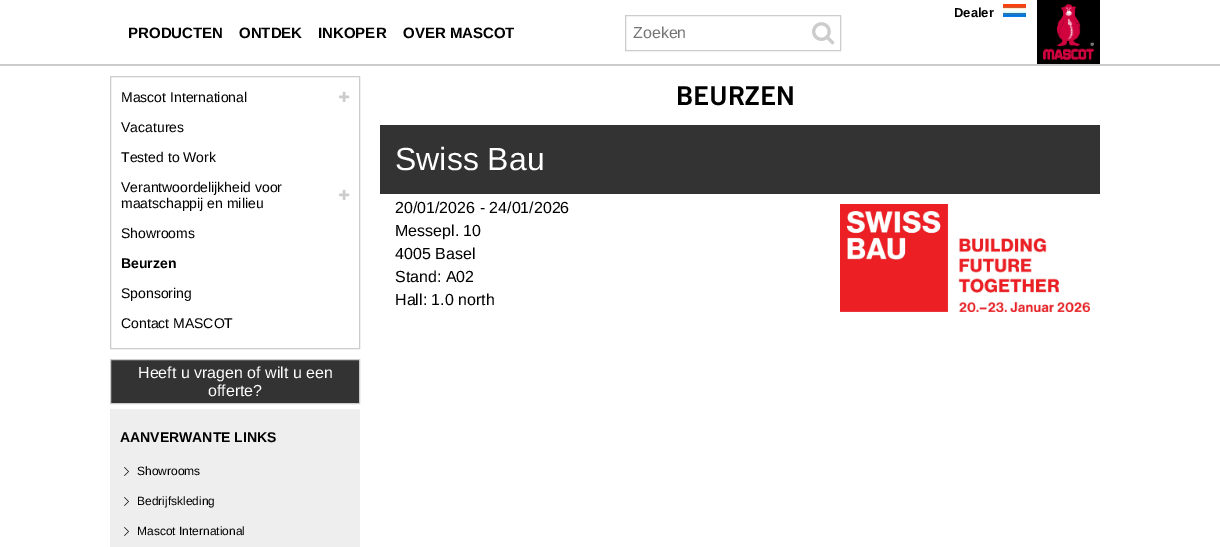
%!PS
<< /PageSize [1220 547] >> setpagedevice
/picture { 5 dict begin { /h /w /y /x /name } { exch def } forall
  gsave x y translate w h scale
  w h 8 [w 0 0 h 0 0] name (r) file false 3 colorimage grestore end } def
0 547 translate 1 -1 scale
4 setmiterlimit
1 setgray
0 0 1220 547 rectfill
0.8 setgray
0 64 1220 2 rectfill
/LiberationSans-Bold [13 0 0 -13 0 0] selectfont
0 setgray
954 17 moveto (Dealer) show
/LiberationSans-Bold [15 0 0 -15 0 0] selectfont
128 38 moveto (PRODUCTEN) show
239 38 moveto (ONTDEK) show
318 38 moveto (INKOPER) show
403 38 moveto (OVER MASCOT) show
0.8 setgray
625.5 15.5 215 35 rectstroke
/LiberationSans-Regular [16 0 0 -16 0 0] selectfont
0.459 setgray
633 38 moveto (Zoeken) show
(img1.rgb) 812 22 23 23 picture
(img2.rgb) 1003 4 23 13 picture
(img3.rgb) 1037 0 63 64 picture
0.8 setgray
110.5 76.5 249 272 rectstroke
/LiberationSans-Regular [14 0 0 -14 0 0] selectfont
0 setgray
121 102 moveto (Mascot International) show
(img4.rgb) 339 91 11 11 picture
121 132 moveto (Vacatures) show
121 162 moveto (Tested to Work) show
121 192 moveto (Verantwoordelijkheid voor) show
121 208 moveto (maatschappij en milieu) show
(img4.rgb) 339 189 11 11 picture
121 238 moveto (Showrooms) show
/LiberationSans-Bold [14 0 0 -14 0 0] selectfont
121 268 moveto (Beurzen) show
/LiberationSans-Regular [14 0 0 -14 0 0] selectfont
121 298 moveto (Sponsoring) show
121 328 moveto (Contact MASCOT) show
0.2 setgray
newpath 110.5 359.5 moveto 359.5 359.5 lineto 359.5 403.5 lineto 110.5 403.5 lineto closepath gsave fill grestore
0.8 setgray
stroke
/LiberationSans-Regular [16 0 0 -16 0 0] selectfont
1 setgray
138 378 moveto (Heeft u vragen of wilt u een) show
208 396 moveto (offerte?) show
0.933 setgray
110 409 250 138 rectfill
/LiberationSans-Bold [14 0 0 -14 0 0] selectfont
0 setgray
120 442 moveto (AANVERWANTE LINKS) show
(img5.rgb) 124 467 5 9 picture
/LiberationSans-Regular [12 0 0 -12 0 0] selectfont
137 475 moveto (Showrooms) show
(img5.rgb) 124 497 5 9 picture
137 505 moveto (Bedrijfskleding) show
(img5.rgb) 124 527 5 9 picture
137 535 moveto (Mascot International) show
/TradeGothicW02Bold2-Bold [26 0 0 -26 0 0] selectfont
676 105 moveto (BEURZEN) show
0.2 setgray
380 125 720 69 rectfill
/LiberationSans-Regular [32 0 0 -32 0 0] selectfont
1 setgray
395 170 moveto (Swiss Bau) show
/LiberationSans-Regular [16 0 0 -16 0 0] selectfont
0 setgray
395 213 moveto (20/01/2026 - 24/01/2026) show
395 236 moveto (Messepl. 10) show
395 259 moveto (4005 Basel) show
395 282 moveto (Stand: A02) show
395 305 moveto (Hall: 1.0 north) show
(img6.rgb) 840 204 250 108 picture
showpage
